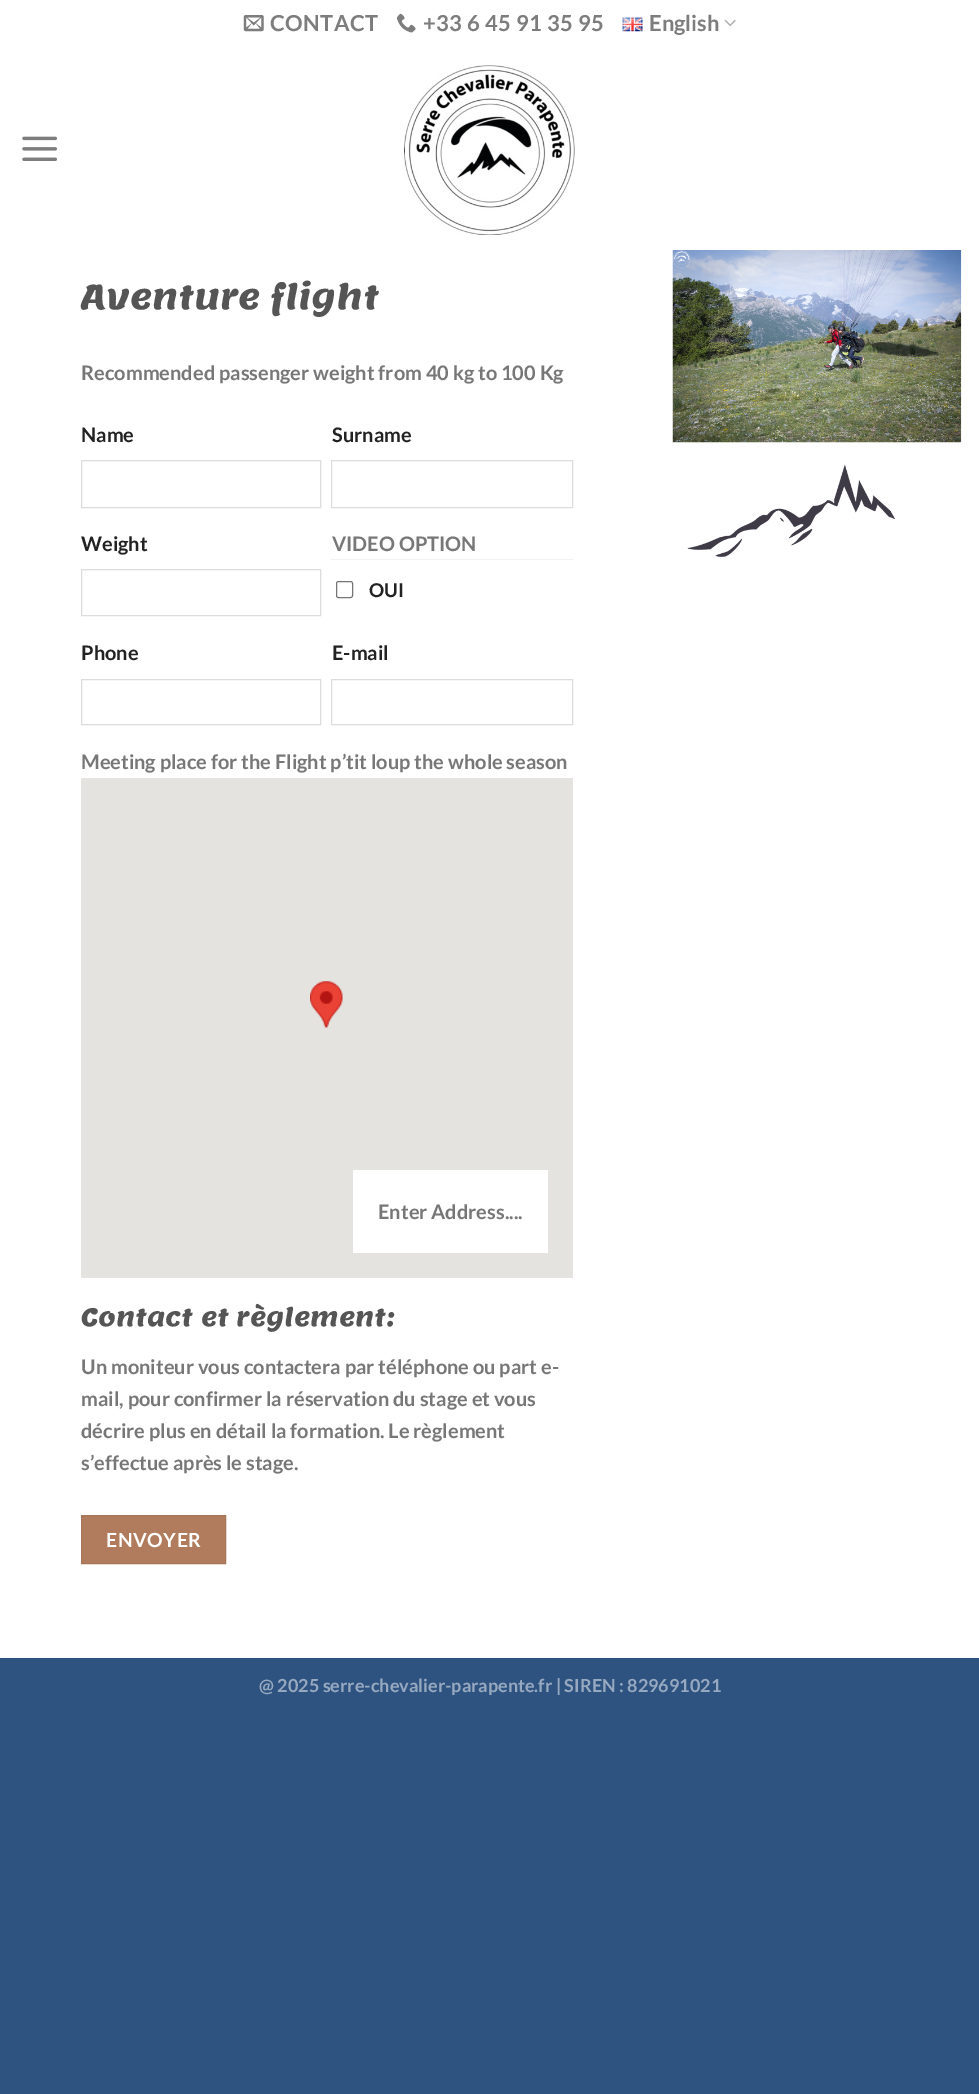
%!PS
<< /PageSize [979 2094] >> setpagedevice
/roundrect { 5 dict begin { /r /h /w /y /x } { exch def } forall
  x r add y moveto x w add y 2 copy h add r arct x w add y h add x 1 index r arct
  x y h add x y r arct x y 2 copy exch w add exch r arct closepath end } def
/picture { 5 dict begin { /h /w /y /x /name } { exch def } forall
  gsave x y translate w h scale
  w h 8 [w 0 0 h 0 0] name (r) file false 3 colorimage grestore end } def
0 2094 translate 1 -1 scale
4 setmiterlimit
0.18 0.325 0.506 setrgbcolor
0 0 979 2094 rectfill
1 setgray
0 0 979 1658 rectfill
(img1.rgb) 243 15 21 17 picture
/Lato-Bold [22 0 0 -22 0 0] selectfont
0.49 setgray
270 31 moveto 0.4 0 (CONTACT) ashow
(img2.rgb) 396 13 20 20 picture
423 31 moveto 0.4 0 (+33 6 45 91 35 95) ashow
(img3.rgb) 622 17 21 15 picture
649 31 moveto (English) show
(img4.rgb) 724 19 12 8 picture
(img5.rgb) 22 136 36 25 picture
(img6.rgb) 404 65 171 170 picture
/Lemon-Regular [34 0 0 -34 0 0] selectfont
0.333 setgray
81 309 moveto (Aventure flight) show
/Lato-Bold [20 0 0 -20 0 0] selectfont
0.467 setgray
81 380 moveto (Recommended passenger weight from 40 kg to 100 Kg) show
0.133 setgray
81 442 moveto (Name) show
0.867 setgray
81.5 460.5 239 47 rectstroke
0.133 setgray
332 442 moveto (Surname) show
0.867 setgray
331.5 460.5 241 47 rectstroke
0.133 setgray
81 551 moveto (Weight) show
0.867 setgray
81.5 569.5 239 46 rectstroke
0.945 setgray
331 559 242 1 rectfill
0.467 setgray
332 551 moveto (VIDEO OPTION) show
0.463 setgray
336.5 581.5 16 16 2 roundrect stroke
/Lato-Bold [19 0 0 -19 0 0] selectfont
0.133 setgray
369 597 moveto (OUI) show
/Lato-Bold [20 0 0 -20 0 0] selectfont
81 660 moveto (Phone) show
0.867 setgray
81.5 679.5 239 45 rectstroke
0.133 setgray
332 660 moveto (E-mail) show
0.867 setgray
331.5 679.5 241 45 rectstroke
0.467 setgray
81 769 moveto (Meeting place for the Flight p’tit loup the whole season) show
0.898 0.89 0.875 setrgbcolor
81 778 492 500 rectfill
(img7.rgb) 310 981 33 47 picture
1 setgray
353 1170 195 83 rectfill
0.467 setgray
378 1219 moveto (Enter Address....) show
/Lemon-Regular [25 0 0 -25 0 0] selectfont
0.333 setgray
81 1326 moveto (Contact et règlement:) show
/Lato-Bold [20 0 0 -20 0 0] selectfont
0.467 setgray
81 1374 moveto (Un moniteur vous contactera par téléphone ou part e-) show
81 1406 moveto (mail, pour confirmer la réservation du stage et vous) show
81 1438 moveto (décrire plus en détail la formation. Le règlement) show
81 1470 moveto (s’effectue après le stage.) show
0.69 0.486 0.365 setrgbcolor
newpath 81.5 1515.5 moveto 225.5 1515.5 lineto 225.5 1563.5 lineto 81.5 1563.5 lineto closepath gsave fill grestore
0.655 0.463 0.345 setrgbcolor
stroke
/Lato-Bold [19.5 0 0 -19.5 0 0] selectfont
1 setgray
106 1547 moveto 0.5 0 (ENVOYER) ashow
(img8.rgb) 672 250 290 193 picture
(img9.rgb) 687 464 209 93 picture
/Lato-Bold [18 0 0 -18 0 0] selectfont
0.592 0.663 0.753 setrgbcolor
259 1692 moveto (@ 2025 serre-chevalier-parapente.fr | SIREN : 829691021) show
showpage
